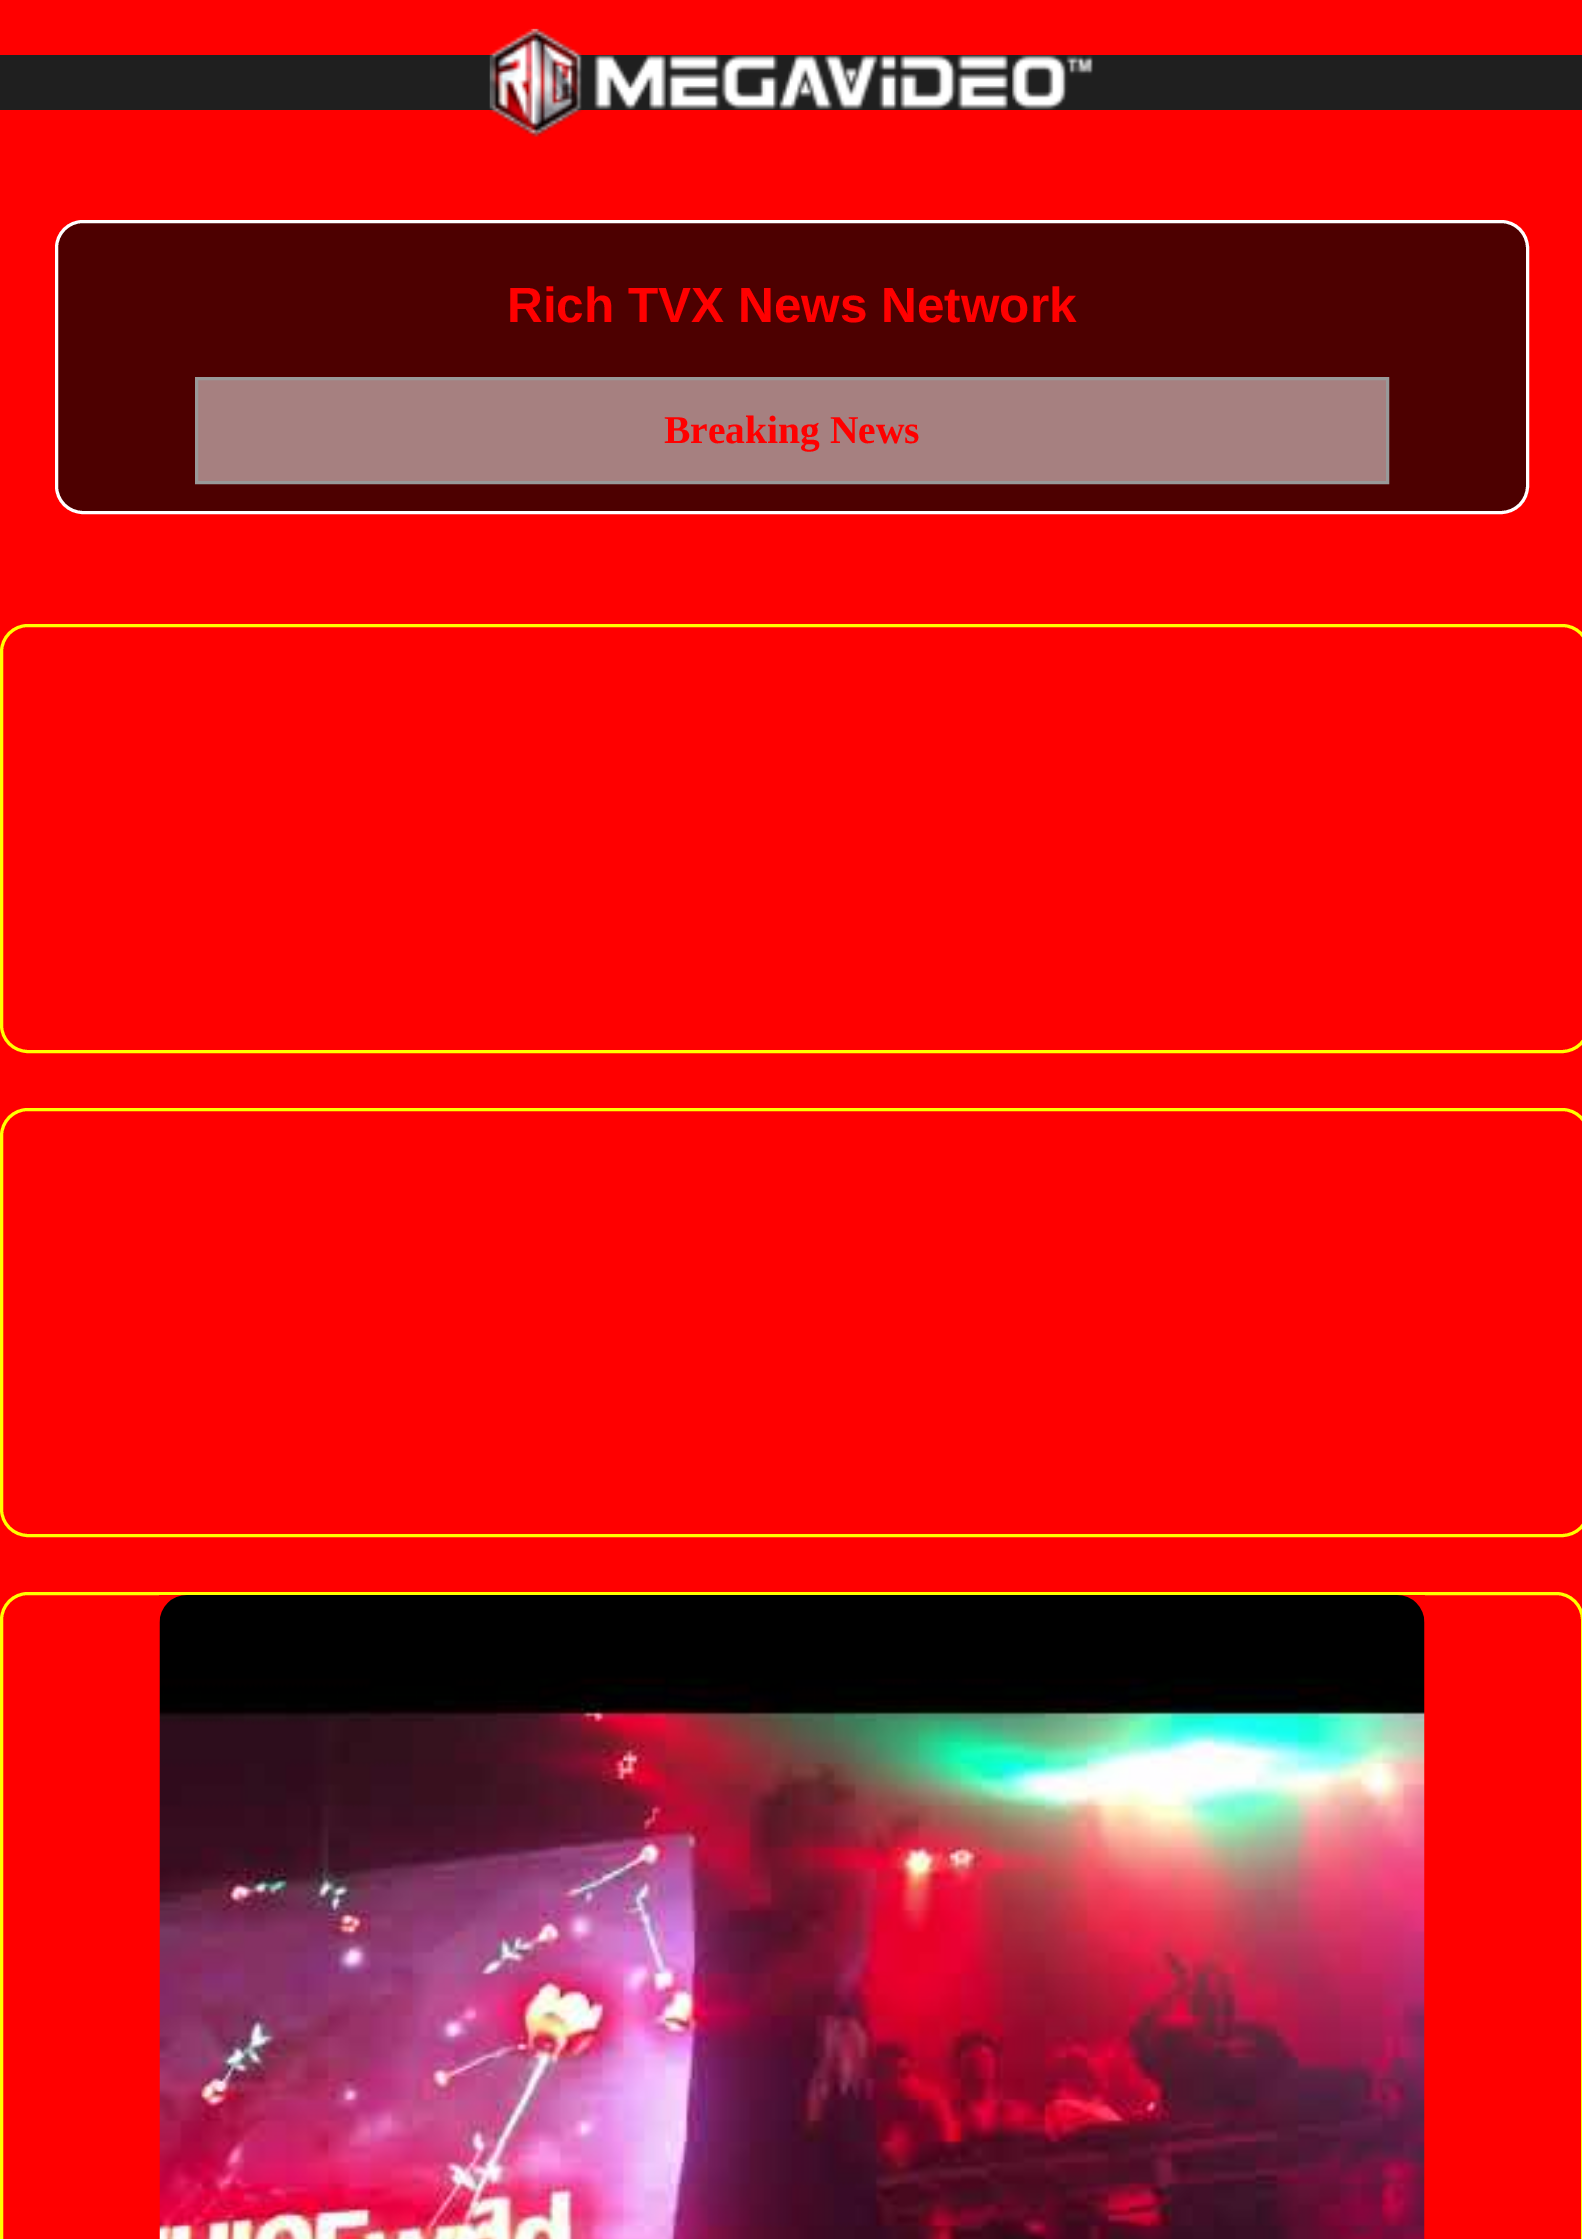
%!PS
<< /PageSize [1582 2239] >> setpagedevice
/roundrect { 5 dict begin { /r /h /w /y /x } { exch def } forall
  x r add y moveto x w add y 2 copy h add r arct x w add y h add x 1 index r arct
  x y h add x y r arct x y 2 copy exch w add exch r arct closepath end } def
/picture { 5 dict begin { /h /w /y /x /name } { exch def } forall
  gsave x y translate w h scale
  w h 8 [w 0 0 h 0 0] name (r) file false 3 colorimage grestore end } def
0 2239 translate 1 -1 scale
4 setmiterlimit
1 0 0 setrgbcolor
0 0 1582 2239 rectfill
0.122 setgray
0 55 1582 55 rectfill
(img1.rgb) 489 28 604 109 picture
0.302 0 0 setrgbcolor
56.5 221.5 1471 291 26.5 roundrect gsave fill grestore
1 setgray
3 setlinewidth
stroke
/LiberationSans-Bold [49.5 0 0 -49.5 0 0] selectfont
1 0 0 setrgbcolor
507 322 moveto (Rich TVX News Network) show
0.651 0.502 0.502 setrgbcolor
newpath 196.5 378.5 moveto 1387.5 378.5 lineto 1387.5 482.5 lineto 196.5 482.5 lineto closepath gsave fill grestore
0.6 setgray
stroke
/LiberationSerif-Bold [39.5 0 0 -39.5 0 0] selectfont
1 0 0 setrgbcolor
664 443 moveto (Breaking News) show
1 1 0 setrgbcolor
1.5 625.5 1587 426 26.5 roundrect stroke
1.5 1109.5 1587 426 26.5 roundrect stroke
1.5 1593.5 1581 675 26.5 roundrect stroke
(img2.rgb) 159 1595 1266 644 picture
showpage
